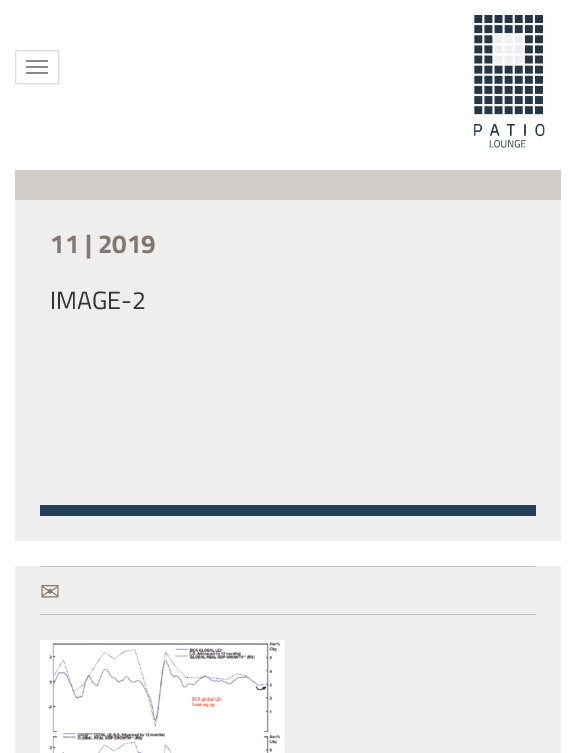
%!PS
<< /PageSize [576 753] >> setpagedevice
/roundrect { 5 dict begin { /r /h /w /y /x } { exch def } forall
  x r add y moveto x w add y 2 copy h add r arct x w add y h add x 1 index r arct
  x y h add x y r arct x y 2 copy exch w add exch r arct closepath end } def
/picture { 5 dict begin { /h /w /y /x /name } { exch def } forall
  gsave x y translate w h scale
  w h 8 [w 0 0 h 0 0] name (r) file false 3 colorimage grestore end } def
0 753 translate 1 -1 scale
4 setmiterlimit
1 setgray
0 0 576 753 rectfill
0.867 setgray
15.5 50.5 43 33 rectstroke
0.533 setgray
26 60 22 2 1 roundrect fill
26 66 22 2 1 roundrect fill
26 72 22 2 1 roundrect fill
(img1.rgb) 474 15 71 133 picture
0.816 0.8 0.784 setrgbcolor
15 170 546 30 rectfill
0.933 setgray
15 200 546 341 rectfill
/TitilliumWeb-Bold [26 0 0 -26 0 0] selectfont
0.514 0.471 0.435 setrgbcolor
50 253 moveto (11 | 2019) show
/TitilliumWeb-Regular [25 0 0 -25 0 0] selectfont
0.2 setgray
50 309 moveto (IMAGE-2) show
0.141 0.251 0.345 setrgbcolor
40 505 496 11 rectfill
0.933 setgray
15 566 546 187 rectfill
0.769 0.749 0.729 setrgbcolor
40 566 496 1 rectfill
40 614 496 1 rectfill
/DejaVuSans-Regular [24 0 0 -24 0 0] selectfont
0.514 0.471 0.435 setrgbcolor
40 600 moveto (✉) show
(img2.rgb) 40 640 245 113 picture
showpage
